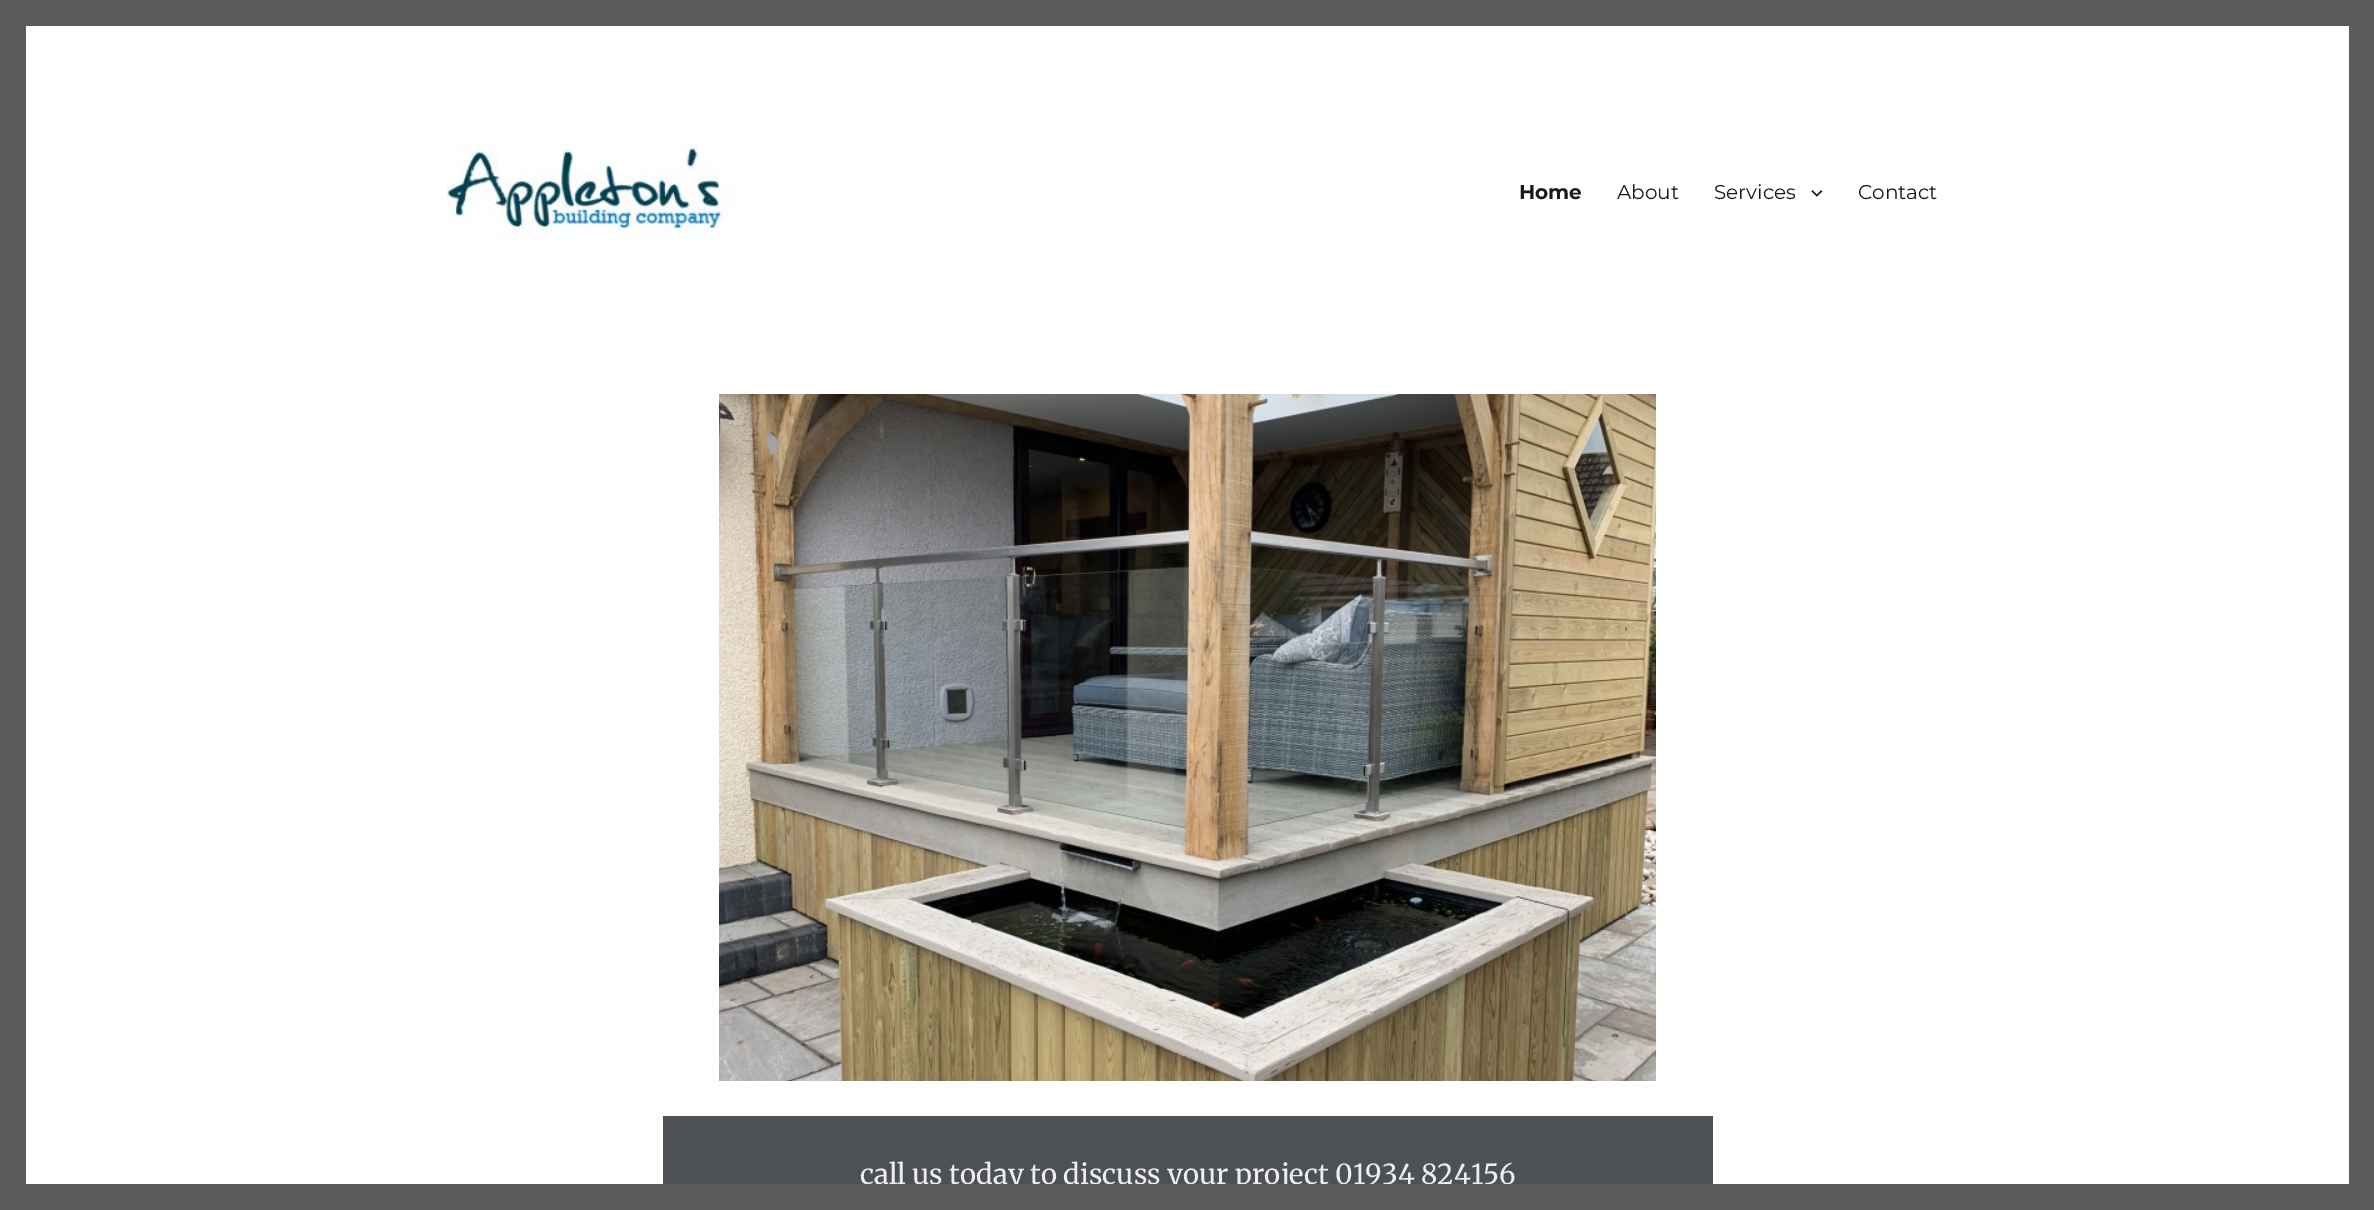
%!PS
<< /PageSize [2374 1210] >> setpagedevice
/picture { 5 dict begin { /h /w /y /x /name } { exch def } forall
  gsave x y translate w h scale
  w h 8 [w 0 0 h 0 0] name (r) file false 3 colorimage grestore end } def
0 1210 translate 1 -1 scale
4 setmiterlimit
0.357 setgray
0 0 2374 1210 rectfill
1 setgray
26 26 2323 1158 rectfill
(img1.rgb) 446 142 292 101 picture
/Montserrat-Bold [20 0 0 -20 0 0] selectfont
0.102 setgray
1519 199 moveto (Home) show
/Montserrat-Regular [20 0 0 -20 0 0] selectfont
1617 199 moveto (About) show
1714 199 moveto (Services) show
(img2.rgb) 1811 190 12 7 picture
1858 199 moveto (Contact) show
(img3.rgb) 719 394 937 687 picture
(img4.rgb) 766 433 13 23 picture
0.302 0.318 0.333 setrgbcolor
663 1116 1050 68 rectfill
/Merriweather-Regular [27.5 0 0 -27.5 0 0] selectfont
0.933 setgray
860 1184 moveto (call us today to discuss your project 01934 824156) show
0.357 setgray
865 1184 645 7 rectfill
showpage
